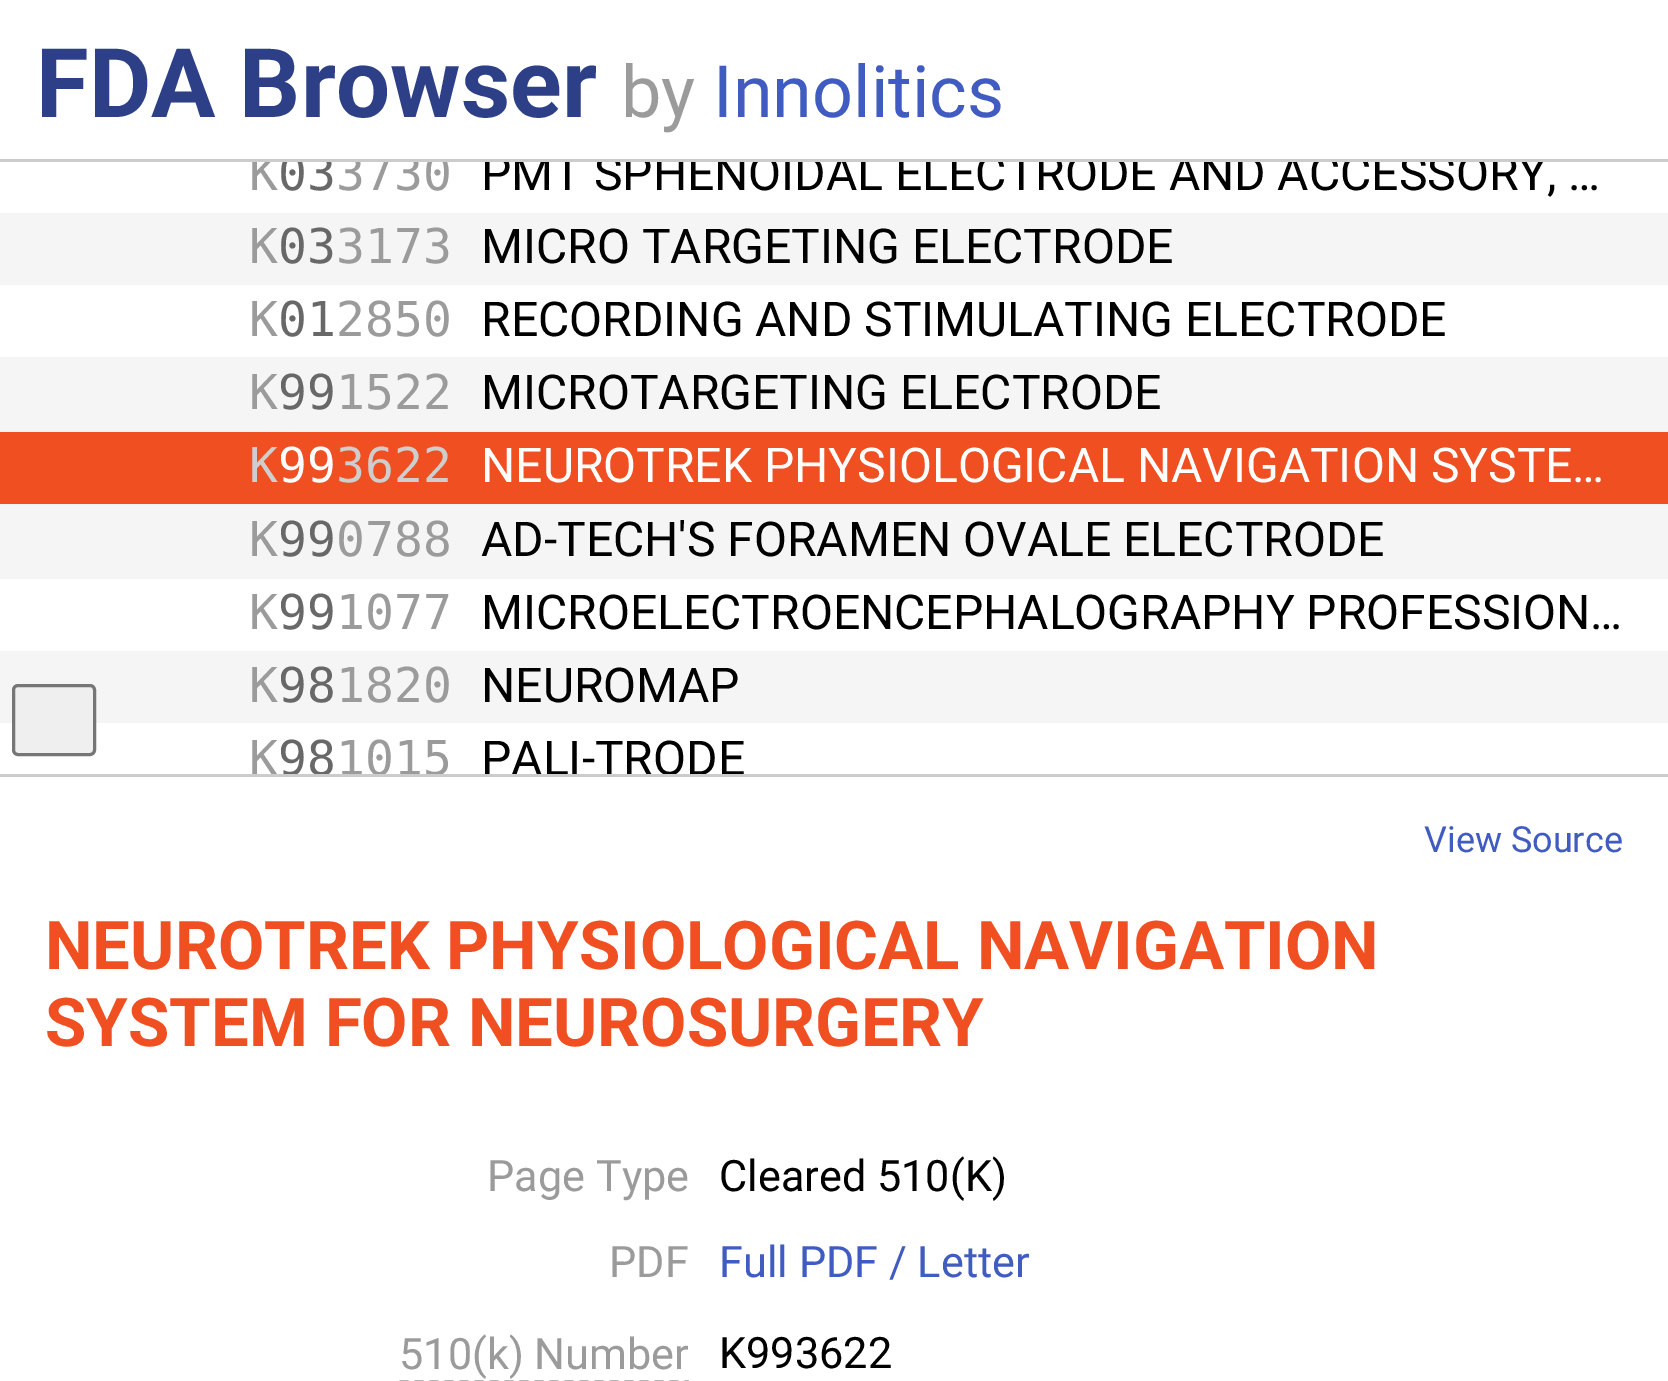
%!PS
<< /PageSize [1668 1381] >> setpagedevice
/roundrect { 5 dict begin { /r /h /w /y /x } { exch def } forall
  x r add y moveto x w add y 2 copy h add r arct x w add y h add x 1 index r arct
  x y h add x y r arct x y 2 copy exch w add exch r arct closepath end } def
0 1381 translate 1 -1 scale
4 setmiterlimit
1 setgray
0 0 1668 1381 rectfill
0.8 setgray
0 159 1668 3 rectfill
/Roboto-Bold [96 0 0 -96 0 0] selectfont
0.176 0.251 0.529 setrgbcolor
36 117 moveto (FDA Browser) show
/Roboto-Regular [72 0 0 -72 0 0] selectfont
0.608 setgray
621 117 moveto (by) show
0.255 0.361 0.753 setrgbcolor
713 117 moveto (Innolitics) show
0.961 setgray
0 213 1668 510 rectfill
gsave
234 162 231 42 rectclip
/DejaVuSansMono-Regular [48 0 0 -48 0 0] selectfont
0.608 setgray
249 190 moveto (K) show
0.408 setgray
278 190 moveto (03) show
0.608 setgray
336 190 moveto (3730) show
grestore
gsave
465 162 1188 42 rectclip
/Roboto-Regular [48 0 0 -48 0 0] selectfont
0 setgray
481 190 moveto (PMT SPHENOIDAL ELECTRODE AND ACCESSORY, …) show
grestore
/DejaVuSansMono-Regular [48 0 0 -48 0 0] selectfont
0.608 setgray
249 263 moveto (K) show
0.408 setgray
278 263 moveto (03) show
0.608 setgray
336 263 moveto (3173) show
/Roboto-Regular [48 0 0 -48 0 0] selectfont
0 setgray
481 263 moveto (MICRO TARGETING ELECTRODE) show
1 setgray
0 285 1668 72 rectfill
/DejaVuSansMono-Regular [48 0 0 -48 0 0] selectfont
0.608 setgray
249 336 moveto (K) show
0.408 setgray
278 336 moveto (01) show
0.608 setgray
336 336 moveto (2850) show
/Roboto-Regular [48 0 0 -48 0 0] selectfont
0 setgray
481 336 moveto (RECORDING AND STIMULATING ELECTRODE) show
/DejaVuSansMono-Regular [48 0 0 -48 0 0] selectfont
0.608 setgray
249 409 moveto (K) show
0.408 setgray
278 409 moveto (99) show
0.608 setgray
336 409 moveto (1522) show
/Roboto-Regular [48 0 0 -48 0 0] selectfont
0 setgray
481 409 moveto (MICROTARGETING ELECTRODE) show
0.941 0.31 0.133 setrgbcolor
0 432 1668 72 rectfill
/DejaVuSansMono-Regular [48 0 0 -48 0 0] selectfont
0.808 setgray
249 482 moveto (K) show
1 setgray
278 482 moveto (99) show
0.808 setgray
336 482 moveto (3622) show
/Roboto-Regular [48 0 0 -48 0 0] selectfont
1 setgray
481 482 moveto (NEUROTREK PHYSIOLOGICAL NAVIGATION SYSTE…) show
/DejaVuSansMono-Regular [48 0 0 -48 0 0] selectfont
0.608 setgray
249 556 moveto (K) show
0.408 setgray
278 556 moveto (99) show
0.608 setgray
336 556 moveto (0788) show
/Roboto-Regular [48 0 0 -48 0 0] selectfont
0 setgray
481 556 moveto (AD-TECH'S FORAMEN OVALE ELECTRODE) show
1 setgray
0 579 1668 72 rectfill
/DejaVuSansMono-Regular [48 0 0 -48 0 0] selectfont
0.608 setgray
249 629 moveto (K) show
0.408 setgray
278 629 moveto (99) show
0.608 setgray
336 629 moveto (1077) show
/Roboto-Regular [48 0 0 -48 0 0] selectfont
0 setgray
481 629 moveto (MICROELECTROENCEPHALOGRAPHY PROFESSION…) show
/DejaVuSansMono-Regular [48 0 0 -48 0 0] selectfont
0.608 setgray
249 702 moveto (K) show
0.408 setgray
278 702 moveto (98) show
0.608 setgray
336 702 moveto (1820) show
/Roboto-Regular [48 0 0 -48 0 0] selectfont
0 setgray
481 702 moveto (NEUROMAP) show
/DejaVuSansMono-Regular [48 0 0 -48 0 0] selectfont
0.608 setgray
249 775 moveto (K) show
0.408 setgray
278 775 moveto (98) show
0.608 setgray
336 775 moveto (1015) show
/Roboto-Regular [48 0 0 -48 0 0] selectfont
0 setgray
481 775 moveto (PALI-TRODE) show
0.8 setgray
0 774 1668 3 rectfill
0.937 setgray
13.5 685.5 81 69 4.5 roundrect gsave fill grestore
0.463 setgray
3 setlinewidth
stroke
/Roboto-Regular [36 0 0 -36 0 0] selectfont
0.255 0.361 0.753 setrgbcolor
1424 852 moveto (View Source) show
/Roboto-Bold [67.25 0 0 -67.25 0 0] selectfont
0.941 0.31 0.133 setrgbcolor
45 969 moveto (NEUROTREK PHYSIOLOGICAL NAVIGATION) show
45 1046 moveto (SYSTEM FOR NEUROSURGERY) show
/Roboto-Regular [43.25 0 0 -43.25 0 0] selectfont
0.608 setgray
487 1191 moveto (Page Type) show
0 setgray
719 1191 moveto (Cleared 510\(K\)) show
0.608 setgray
609 1277 moveto (PDF) show
0.255 0.361 0.753 setrgbcolor
719 1277 moveto (Full PDF / Letter) show
0.608 setgray
399 1369 moveto (510\(k\) Number) show
0.71 setgray
[9 6] 0 setdash
newpath 399.5 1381.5 moveto 689 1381.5 lineto stroke
0 setgray
719 1368 moveto (K993622) show
showpage
